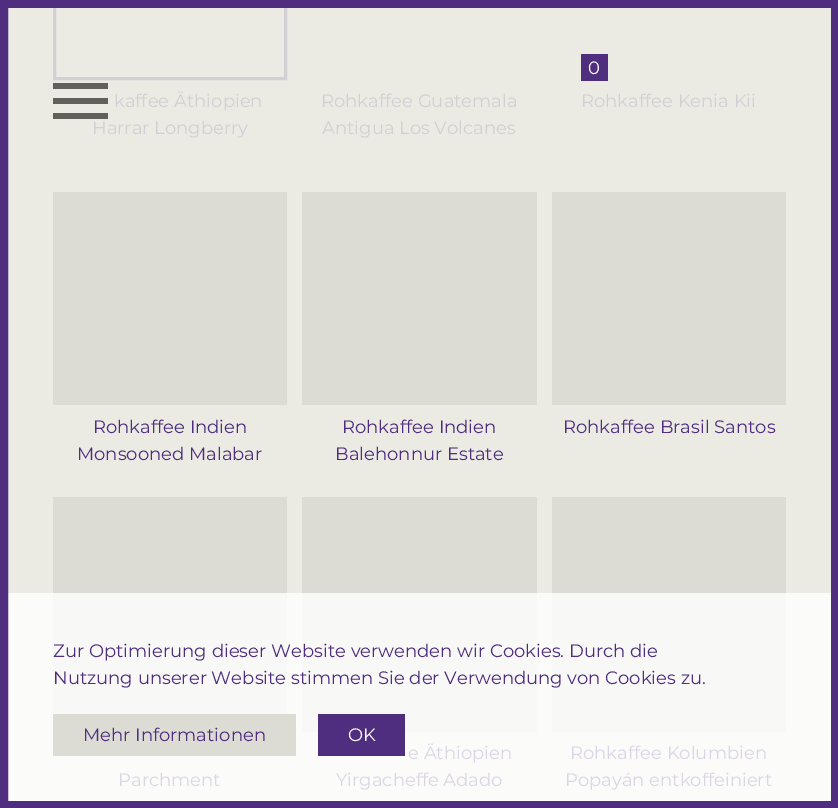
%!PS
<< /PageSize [838 808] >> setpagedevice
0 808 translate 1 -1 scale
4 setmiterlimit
0.922 0.922 0.894 setrgbcolor
0 0 838 808 rectfill
0.984 0.984 0.98 setrgbcolor
8 593 823 208 rectfill
0.31 0.176 0.498 setrgbcolor
8 setlinewidth
4 -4 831 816 rectstroke
0.831 0.812 0.835 setrgbcolor
3 setlinewidth
54.5 -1.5 231 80 rectstroke
0.31 0.176 0.498 setrgbcolor
0 0 838 8 rectfill
581 54 27 27 rectfill
/Montserrat-Regular [18 0 0 -18 0 0] selectfont
1 setgray
588 74 moveto (0) show
0.376 0.376 0.365 setrgbcolor
53 83 55 6 rectfill
53 98 55 6 rectfill
53 113 55 6 rectfill
0.831 0.812 0.835 setrgbcolor
114 107 moveto (kaffee Äthiopien) show
92 134 moveto (Harrar Longberry) show
321 107 moveto (Rohkaffee Guatemala) show
322 134 moveto (Antigua Los Volcanes) show
581 107 moveto (Rohkaffee Kenia Kii) show
0.863 0.863 0.831 setrgbcolor
53 192 234 213 rectfill
0.31 0.176 0.498 setrgbcolor
93 433 moveto (Rohkaffee Indien) show
77 460 moveto (Monsooned Malabar) show
0.863 0.863 0.831 setrgbcolor
302 192 235 213 rectfill
0.31 0.176 0.498 setrgbcolor
342 433 moveto (Rohkaffee Indien) show
335 460 moveto (Balehonnur Estate) show
0.863 0.863 0.831 setrgbcolor
552 192 234 213 rectfill
0.31 0.176 0.498 setrgbcolor
563 433 moveto (Rohkaffee Brasil Santos) show
0.863 0.863 0.831 setrgbcolor
53 497 234 96 rectfill
0.973 0.973 0.965 setrgbcolor
53 593 234 121 rectfill
0.863 0.835 0.898 setrgbcolor
118 786 moveto (Parchment) show
0.863 0.863 0.831 setrgbcolor
302 497 235 96 rectfill
0.973 0.973 0.965 setrgbcolor
302 593 235 139 rectfill
0.863 0.835 0.898 setrgbcolor
408 759 moveto (e Äthiopien) show
336 786 moveto (Yirgacheffe Adado) show
0.863 0.863 0.831 setrgbcolor
552 497 234 96 rectfill
0.973 0.973 0.965 setrgbcolor
552 593 234 139 rectfill
0.863 0.835 0.898 setrgbcolor
570 759 moveto (Rohkaffee Kolumbien) show
565 786 moveto (Popayán entkoffeiniert) show
0.31 0.176 0.498 setrgbcolor
0 801 838 7 rectfill
53 657 moveto (Zur Optimierung dieser Website verwenden wir Cookies. Durch die) show
53 684 moveto (Nutzung unserer Website stimmen Sie der Verwendung von Cookies zu.) show
0.863 0.863 0.831 setrgbcolor
53 714 243 42 rectfill
0.31 0.176 0.498 setrgbcolor
83 741 moveto (Mehr Informationen) show
318 714 87 42 rectfill
1 setgray
348 741 moveto (OK) show
showpage
